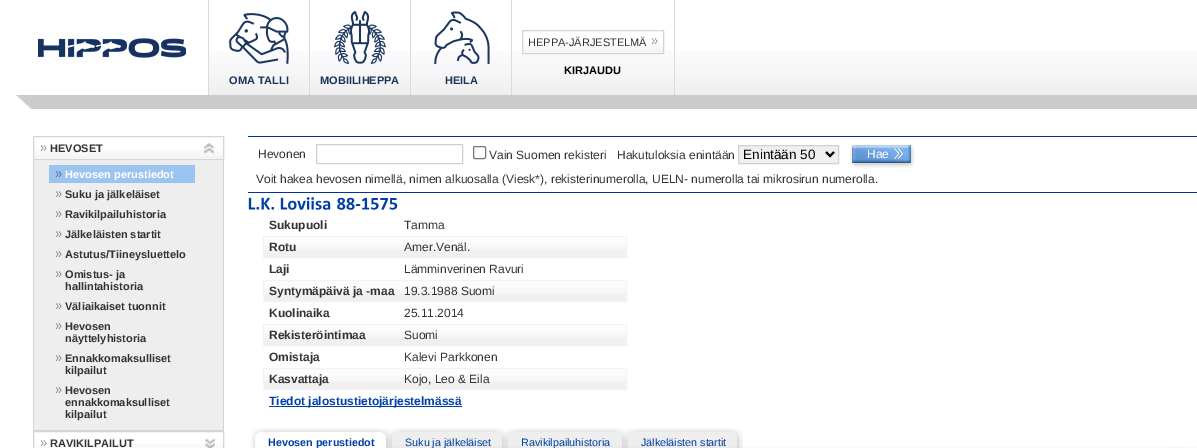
%!PS
<< /PageSize [1197 448] >> setpagedevice
/roundrect { 5 dict begin { /r /h /w /y /x } { exch def } forall
  x r add y moveto x w add y 2 copy h add r arct x w add y h add x 1 index r arct
  x y h add x y r arct x y 2 copy exch w add exch r arct closepath end } def
/picture { 5 dict begin { /h /w /y /x /name } { exch def } forall
  gsave x y translate w h scale
  w h 8 [w 0 0 h 0 0] name (r) file false 3 colorimage grestore end } def
0 448 translate 1 -1 scale
4 setmiterlimit
1 setgray
0 0 1197 448 rectfill
(img1.rgb) 209 51 988 44 picture
(img2.rgb) 16 32 192 63 picture
0.859 setgray
674 0 1 95 rectfill
511 0 1 95 rectfill
(img3.rgb) 523 43 140 10 picture
0.835 setgray
522.5 30.5 141 23 rectstroke
/LiberationSans-Regular [11 0 0 -11 0 0] selectfont
0.2 setgray
528 46 moveto (HEPPA-JÄRJESTELMÄ) show
(img4.rgb) 651 38 7 7 picture
/LiberationSans-Bold [11 0 0 -11 0 0] selectfont
0 setgray
564 74 moveto (KIRJAUDU) show
0.859 setgray
208 0 1 95 rectfill
(img5.rgb) 229 13 60 51 picture
0.106 0.212 0.365 setrgbcolor
229 84 moveto (OMA TALLI) show
0.859 setgray
309 0 1 95 rectfill
(img6.rgb) 334 11 52 53 picture
0.106 0.212 0.365 setrgbcolor
320 84 moveto (MOBIILIHEPPA) show
0.859 setgray
410 0 1 95 rectfill
(img7.rgb) 434 11 56 53 picture
0.106 0.212 0.365 setrgbcolor
445 84 moveto (HEILA) show
(img8.rgb) 16 95 1181 14 picture
(img9.rgb) 34 149 189 10 picture
0.835 setgray
33.5 136.5 190 23 rectstroke
(img10.rgb) 40 145 7 7 picture
0.2 setgray
50 152 moveto (HEVOSET) show
(img11.rgb) 204 143 11 11 picture
0.933 setgray
34 160 189 270 rectfill
0.835 setgray
223 160 1 271 rectfill
33 430 191 1 rectfill
33 160 1 271 rectfill
0.612 0.769 0.941 setrgbcolor
49 165 146 18 rectfill
(img12.rgb) 55 171 7 7 picture
1 setgray
65 178 moveto (Hevosen perustiedot) show
(img13.rgb) 55 191 7 7 picture
0.2 setgray
65 198 moveto (Suku ja jälkeläiset) show
(img13.rgb) 55 211 7 7 picture
65 218 moveto (Ravikilpailuhistoria) show
(img13.rgb) 55 231 7 7 picture
65 238 moveto (Jälkeläisten startit) show
(img13.rgb) 55 251 7 7 picture
65 258 moveto (Astutus/Tiineysluettelo) show
(img13.rgb) 55 271 7 7 picture
65 278 moveto (Omistus- ja) show
65 290 moveto (hallintahistoria) show
(img13.rgb) 55 303 7 7 picture
65 310 moveto (Väliaikaiset tuonnit) show
(img13.rgb) 55 323 7 7 picture
65 330 moveto (Hevosen) show
65 342 moveto (näyttelyhistoria) show
(img13.rgb) 55 355 7 7 picture
65 362 moveto (Ennakkomaksulliset) show
65 374 moveto (kilpailut) show
(img13.rgb) 55 387 7 7 picture
65 394 moveto (Hevosen) show
65 406 moveto (ennakkomaksulliset) show
65 418 moveto (kilpailut) show
0.98 setgray
33 444 191 4 rectfill
0.835 setgray
33.5 431.5 190 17 rectstroke
(img10.rgb) 40 440 7 7 picture
0.2 setgray
50 447 moveto (RAVIKILPAILUT) show
(img14.rgb) 204 438 11 10 picture
0 0.2 0.6 setrgbcolor
248 136 949 1 rectfill
248 192 949 1 rectfill
/LiberationSans-Regular [12 0 0 -12 0 0] selectfont
0.2 setgray
258 158 moveto (Hevonen) show
0.82 setgray
316.5 144.5 146 19 rectstroke
0.463 setgray
473.5 146.5 12 12 1.5 roundrect stroke
0.2 setgray
489 159 moveto (Vain Suomen rekisteri) show
617 159 moveto (Hakutuloksia enintään) show
0.937 setgray
newpath 738.5 145.5 moveto 838.5 145.5 lineto 838.5 163.5 lineto 738.5 163.5 lineto closepath gsave fill grestore
0.82 setgray
stroke
0 setgray
2 setlinewidth
newpath 826 152 moveto 830 156 lineto 834 152 lineto stroke
/LiberationSans-Regular [13.5 0 0 -13.5 0 0] selectfont
743 159 moveto (Enintään 50) show
(img15.rgb) 849 143 67 26 picture
/LiberationSans-Regular [12 0 0 -12 0 0] selectfont
1 setgray
867 158 moveto (Hae) show
0.2 setgray
256 183 moveto (Voit hakea hevosen nimellä, nimen alkuosalla \(Viesk*\), rekisterinumerolla, UELN- numerolla tai mikrosirun numerolla.) show
(img16.rgb) 248 197 27 13 picture
(img17.rgb) 280 197 51 13 picture
(img18.rgb) 337 197 61 13 picture
/LiberationSans-Bold [12 0 0 -12 0 0] selectfont
269 229 moveto (Sukupuoli) show
/LiberationSans-Regular [12 0 0 -12 0 0] selectfont
404 229 moveto (Tamma) show
0.941 setgray
264 250 362 7 rectfill
(img19.rgb) 264 237 362 13 picture
0.949 0.953 0.953 setrgbcolor
1 setlinewidth
263.5 236.5 363 21 rectstroke
/LiberationSans-Bold [12 0 0 -12 0 0] selectfont
0.2 setgray
269 251 moveto (Rotu) show
/LiberationSans-Regular [12 0 0 -12 0 0] selectfont
404 251 moveto (Amer.Venäl.) show
/LiberationSans-Bold [12 0 0 -12 0 0] selectfont
269 273 moveto (Laji) show
/LiberationSans-Regular [12 0 0 -12 0 0] selectfont
404 273 moveto (Lämminverinen Ravuri) show
0.941 setgray
264 294 362 7 rectfill
(img19.rgb) 264 281 362 13 picture
0.949 0.953 0.953 setrgbcolor
263.5 280.5 363 21 rectstroke
/LiberationSans-Bold [12 0 0 -12 0 0] selectfont
0.2 setgray
269 295 moveto (Syntymäpäivä ja -maa) show
/LiberationSans-Regular [12 0 0 -12 0 0] selectfont
404 295 moveto (19.3.1988 Suomi) show
/LiberationSans-Bold [12 0 0 -12 0 0] selectfont
269 317 moveto (Kuolinaika) show
/LiberationSans-Regular [12 0 0 -12 0 0] selectfont
404 317 moveto (25.11.2014) show
0.941 setgray
264 338 362 7 rectfill
(img19.rgb) 264 325 362 13 picture
0.949 0.953 0.953 setrgbcolor
263.5 324.5 363 21 rectstroke
/LiberationSans-Bold [12 0 0 -12 0 0] selectfont
0.2 setgray
269 339 moveto (Rekisteröintimaa) show
/LiberationSans-Regular [12 0 0 -12 0 0] selectfont
404 339 moveto (Suomi) show
/LiberationSans-Bold [12 0 0 -12 0 0] selectfont
269 361 moveto (Omistaja) show
/LiberationSans-Regular [12 0 0 -12 0 0] selectfont
404 361 moveto (Kalevi Parkkonen) show
0.941 setgray
264 382 362 7 rectfill
(img19.rgb) 264 369 362 13 picture
0.949 0.953 0.953 setrgbcolor
263.5 368.5 363 21 rectstroke
/LiberationSans-Bold [12 0 0 -12 0 0] selectfont
0.2 setgray
269 383 moveto (Kasvattaja) show
/LiberationSans-Regular [12 0 0 -12 0 0] selectfont
404 383 moveto (Kojo, Leo & Eila) show
0 0.251 0.651 setrgbcolor
269 406 193 1 rectfill
/LiberationSans-Bold [12 0 0 -12 0 0] selectfont
269 405 moveto (Tiedot jalostustietojärjestelmässä) show
(img26.rgb) 386 446 811 2 picture
(img23.rgb) 388 428 108 20 picture
(img20.rgb) 380 428 12 20 picture
(img21.rgb) 251 428 129 20 picture
/LiberationSans-Bold [10.75 0 0 -10.75 0 0] selectfont
268 446 moveto (Hevosen perustiedot) show
(img22.rgb) 496 428 12 20 picture
/LiberationSans-Regular [10.75 0 0 -10.75 0 0] selectfont
405 446 moveto (Suku ja jälkeläiset) show
(img22.rgb) 616 428 12 20 picture
(img24.rgb) 504 428 112 20 picture
521 446 moveto (Ravikilpailuhistoria) show
(img22.rgb) 731 428 12 20 picture
(img25.rgb) 624 428 107 20 picture
641 446 moveto (Jälkeläisten startit) show
showpage
